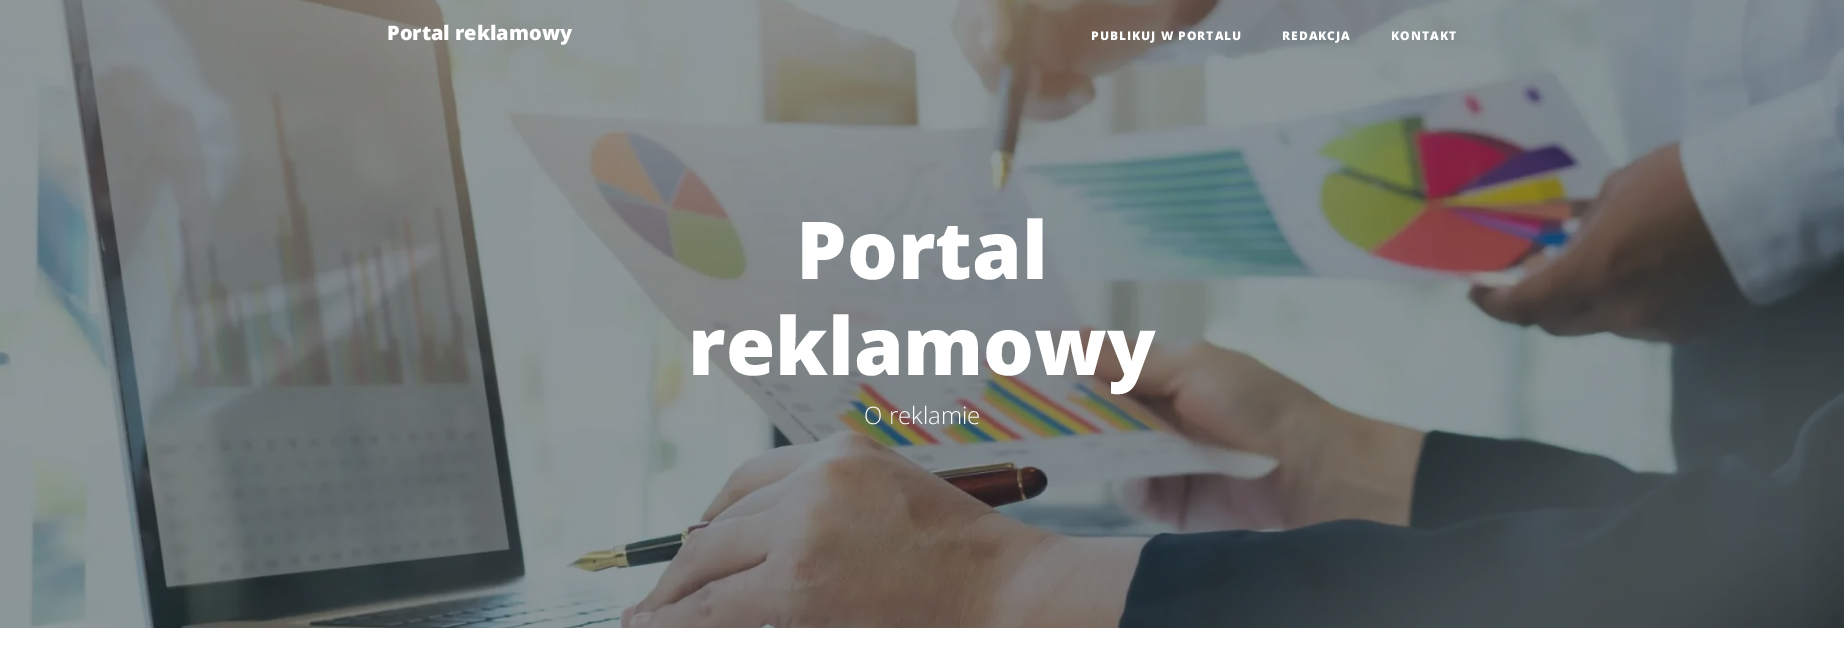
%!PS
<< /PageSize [1844 647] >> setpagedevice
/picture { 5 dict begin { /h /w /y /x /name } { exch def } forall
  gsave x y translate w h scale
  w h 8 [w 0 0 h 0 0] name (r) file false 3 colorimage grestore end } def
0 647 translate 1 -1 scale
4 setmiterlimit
1 setgray
0 0 1844 647 rectfill
(img1.rgb) 0 0 1844 628 picture
/OpenSans-ExtraBold [20 0 0 -20 0 0] selectfont
387 40 moveto (Portal reklamowy) show
/OpenSans-ExtraBold [12 0 0 -12 0 0] selectfont
1091 40 moveto 1 0 (PUBLIKUJ W PORTALU) ashow
1282 40 moveto 1 0 (REDAKCJA) ashow
1391 40 moveto 1 0 (KONTAKT) ashow
/OpenSans-ExtraBold [80 0 0 -80 0 0] selectfont
796 279 moveto (Portal) show
688 375 moveto (reklamowy) show
/OpenSans-Light [24 0 0 -24 0 0] selectfont
864 424 moveto (O reklamie) show
showpage
